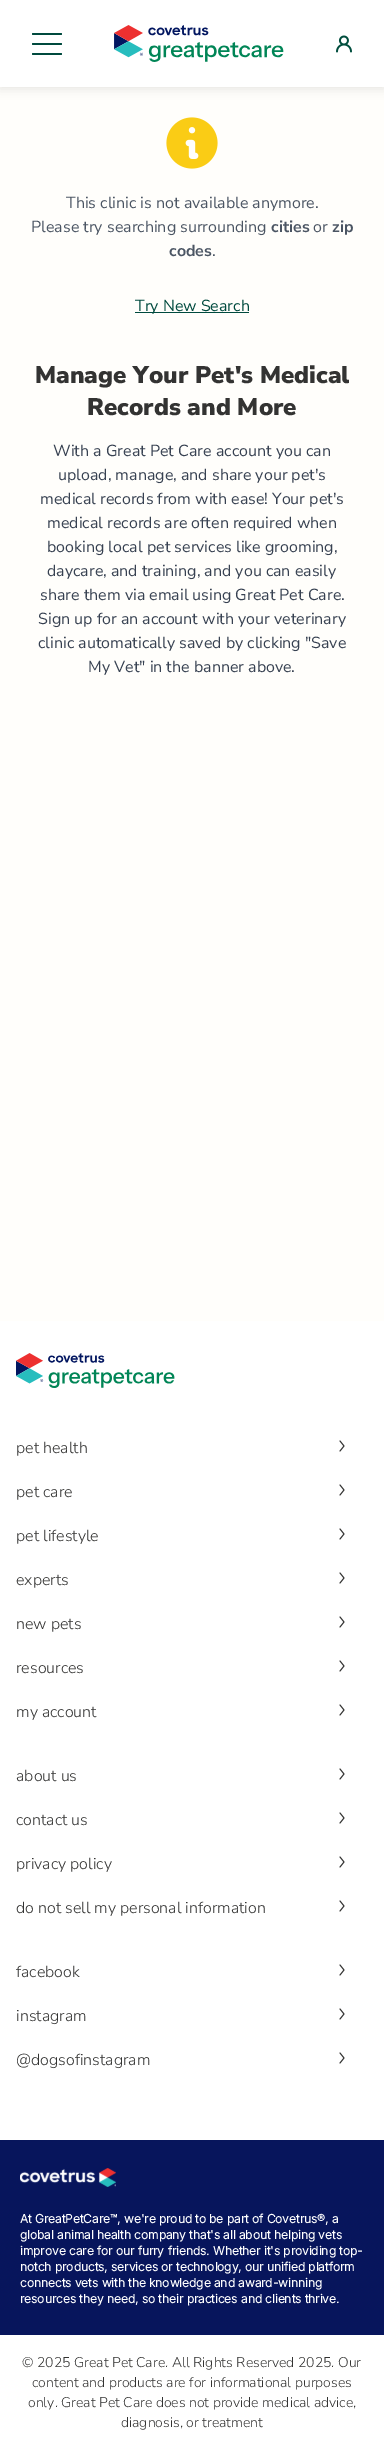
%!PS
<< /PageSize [384 2451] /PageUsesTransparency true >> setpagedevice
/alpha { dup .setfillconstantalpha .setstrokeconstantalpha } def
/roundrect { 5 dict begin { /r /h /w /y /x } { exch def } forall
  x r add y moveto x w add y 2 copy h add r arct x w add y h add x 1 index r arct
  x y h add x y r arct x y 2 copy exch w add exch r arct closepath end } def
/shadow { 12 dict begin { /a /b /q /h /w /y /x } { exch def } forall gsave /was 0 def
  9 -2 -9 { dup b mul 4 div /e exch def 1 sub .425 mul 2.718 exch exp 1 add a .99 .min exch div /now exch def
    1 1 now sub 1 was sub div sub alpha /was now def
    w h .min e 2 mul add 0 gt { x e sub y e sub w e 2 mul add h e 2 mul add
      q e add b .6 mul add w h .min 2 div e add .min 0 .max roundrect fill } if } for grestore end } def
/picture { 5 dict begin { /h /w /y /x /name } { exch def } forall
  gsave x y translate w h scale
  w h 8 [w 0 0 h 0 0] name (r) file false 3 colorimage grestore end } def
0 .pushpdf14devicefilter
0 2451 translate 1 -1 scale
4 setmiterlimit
1 0.996 0.984 setrgbcolor
0 0 384 2451 rectfill
0 setgray
0 2 384 87 0 5 0.1 shadow
1 setgray
0 0 384 87 rectfill
0 0.29 0.243 setrgbcolor
32 33 30 2 1 roundrect fill
32 43 30 2 1 roundrect fill
32 53 30 2 1 roundrect fill
(img1.rgb) 114 25 170 37 picture
(img2.rgb) 336 35 16 18 picture
(img3.rgb) 166 117 52 52 picture
/NunitoSans-Regular [16 0 0 -16 0 0] selectfont
0.294 0.333 0.388 setrgbcolor
66 208 moveto (This clinic is not available anymore.) show
31 232 moveto (Please try searching surrounding) show
/NunitoSans-Bold [16 0 0 -16 0 0] selectfont
271 232 moveto (cities) show
/NunitoSans-Regular [16 0 0 -16 0 0] selectfont
313 232 moveto (or) show
/NunitoSans-Bold [16 0 0 -16 0 0] selectfont
332 232 moveto (zip) show
169 256 moveto (codes) show
/NunitoSans-Regular [16 0 0 -16 0 0] selectfont
212 256 moveto (.) show
0 0.29 0.243 setrgbcolor
135 312 114 1 rectfill
135 311 moveto (Try New Search) show
/NunitoSans-Black [24 0 0 -24 0 0] selectfont
0.2 0.2 0.196 setrgbcolor
35 383 moveto (Manage Your Pet's Medical) show
87 415 moveto (Records and More) show
/NunitoSans-Regular [16 0 0 -16 0 0] selectfont
0.216 0.255 0.318 setrgbcolor
53 456 moveto (With a Great Pet Care account you can) show
58 480 moveto (upload, manage, and share your pet's) show
40 504 moveto (medical records from with ease! Your pet's) show
47 528 moveto (medical records are often required when) show
47 552 moveto (booking local pet services like grooming,) show
47 576 moveto (daycare, and training, and you can easily) show
40 600 moveto (share them via email using Great Pet Care.) show
38 624 moveto (Sign up for an account with your veterinary) show
38 648 moveto (clinic automatically saved by clicking "Save) show
88 672 moveto (My Vet" in the banner above.) show
1 setgray
0 1321 384 1130 rectfill
(img4.rgb) 16 1353 159 35 picture
/NunitoSans-Light [16 0 0 -16 0 0] selectfont
0.2 0.2 0.196 setrgbcolor
16 1453 moveto (pet health) show
(img5.rgb) 339 1440 6 12 picture
16 1497 moveto (pet care) show
(img5.rgb) 339 1484 6 12 picture
16 1541 moveto (pet lifestyle) show
(img5.rgb) 339 1528 6 12 picture
16 1585 moveto (experts) show
(img5.rgb) 339 1572 6 12 picture
16 1629 moveto (new pets) show
(img5.rgb) 339 1616 6 12 picture
16 1673 moveto (resources) show
(img5.rgb) 339 1660 6 12 picture
16 1717 moveto (my account) show
(img5.rgb) 339 1704 6 12 picture
16 1781 moveto (about us) show
(img5.rgb) 339 1768 6 12 picture
16 1825 moveto (contact us) show
(img5.rgb) 339 1812 6 12 picture
16 1869 moveto (privacy policy) show
(img5.rgb) 339 1856 6 12 picture
16 1913 moveto (do not sell my personal information) show
(img5.rgb) 339 1900 6 12 picture
16 1977 moveto (facebook) show
(img5.rgb) 339 1964 6 12 picture
16 2021 moveto (instagram) show
(img5.rgb) 339 2008 6 12 picture
16 2065 moveto (@dogsofinstagram) show
(img5.rgb) 339 2052 6 12 picture
0.027 0.082 0.361 setrgbcolor
0 2140 384 195 rectfill
(img6.rgb) 20 2168 96 19 picture
/Inter-Bold [12 0 0 -12 0 0] selectfont
1 setgray
20 2223 moveto (At GreatPetCare™, we're proud to be part of Covetrus®, a) show
20 2239 moveto (global animal health company that's all about helping vets) show
20 2255 moveto (improve care for our furry friends. Whether it's providing top-) show
20 2271 moveto (notch products, services or technology, our unified platform) show
20 2287 moveto (connects vets with the knowledge and award-winning) show
20 2303 moveto (resources they need, so their practices and clients thrive.) show
/NunitoSans-Light [14 0 0 -14 0 0] selectfont
0.2 0.2 0.196 setrgbcolor
22 2367 moveto (© 2025 Great Pet Care. All Rights Reserved 2025. Our) show
32 2387 moveto (content and products are for informational purposes) show
28 2407 moveto (only. Great Pet Care does not provide medical advice,) show
121 2427 moveto (diagnosis, or treatment) show
.poppdf14devicefilter showpage
